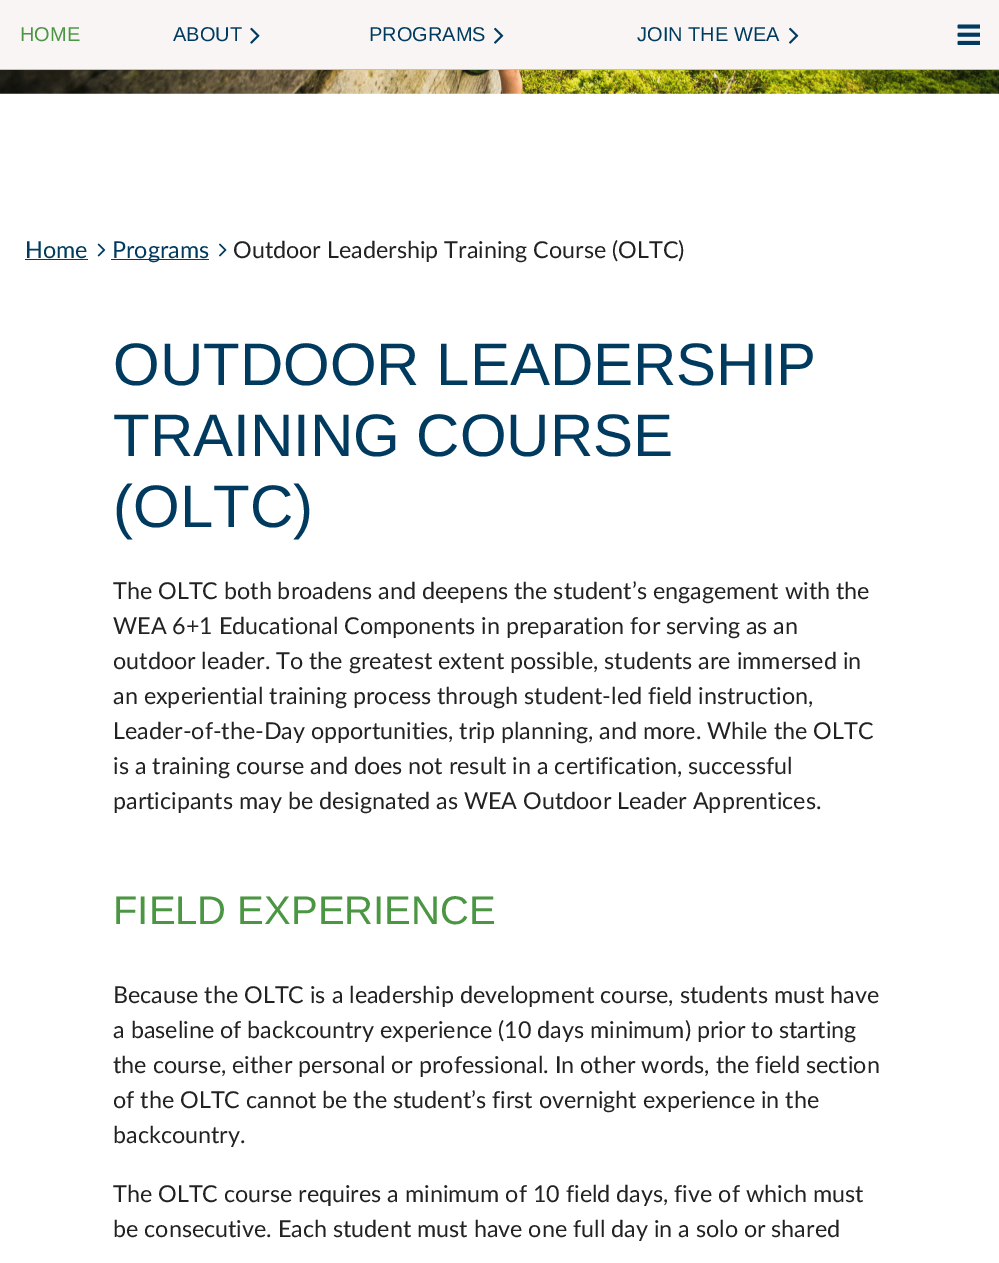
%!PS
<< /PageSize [999 1263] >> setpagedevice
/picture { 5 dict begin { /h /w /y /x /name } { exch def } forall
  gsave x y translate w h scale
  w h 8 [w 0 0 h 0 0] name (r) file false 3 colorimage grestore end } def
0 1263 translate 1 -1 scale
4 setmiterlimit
1 setgray
0 0 999 1263 rectfill
0.976 0.961 0.961 setrgbcolor
0 0 999 69 rectfill
0.757 setgray
0 69 999 1 rectfill
/LiberationSans-Regular [20 0 0 -20 0 0] selectfont
0.294 0.588 0.259 setrgbcolor
20 41 moveto (HOME) show
0 0.231 0.373 setrgbcolor
173 41 moveto (ABOUT) show
(img1.rgb) 250 27 10 17 picture
369 41 moveto (PROGRAMS) show
(img2.rgb) 494 27 10 17 picture
637 41 moveto (JOIN THE WEA) show
(img2.rgb) 789 27 10 17 picture
(img3.rgb) 957 24 23 21 picture
(img4.rgb) 0 70 999 24 picture
/Lato-Regular [23.3 0 0 -23.3 0 0] selectfont
25 258 moveto (Home) show
25 259 63 1 rectfill
(img5.rgb) 97 243 9 14 picture
111 259 98 1 rectfill
112 258 moveto (Programs) show
(img6.rgb) 219 243 8 14 picture
0.133 setgray
233 258 moveto (Outdoor Leadership Training Course \(OLTC\)) show
/LiberationSans-Regular [60 0 0 -60 0 0] selectfont
0 0.231 0.373 setrgbcolor
113 385 moveto (OUTDOOR LEADERSHIP) show
113 456 moveto (TRAINING COURSE) show
113 527 moveto (\(OLTC\)) show
/Lato-Regular [23.3 0 0 -23.3 0 0] selectfont
0.133 setgray
113 599 moveto (The OLTC both broadens and deepens the student’s engagement with the) show
113 634 moveto (WEA 6+1 Educational Components in preparation for serving as an) show
113 669 moveto (outdoor leader. To the greatest extent possible, students are immersed in) show
113 704 moveto (an experiential training process through student-led field instruction,) show
113 739 moveto (Leader-of-the-Day opportunities, trip planning, and more. While the OLTC) show
113 774 moveto (is a training course and does not result in a certification, successful) show
113 809 moveto (participants may be designated as WEA Outdoor Leader Apprentices.) show
/LiberationSans-Regular [40 0 0 -40 0 0] selectfont
0.294 0.588 0.259 setrgbcolor
113 924 moveto (FIELD EXPERIENCE) show
/Lato-Regular [23.3 0 0 -23.3 0 0] selectfont
0.133 setgray
113 1003 moveto (Because the OLTC is a leadership development course, students must have) show
113 1038 moveto (a baseline of backcountry experience \(10 days minimum\) prior to starting) show
113 1073 moveto (the course, either personal or professional. In other words, the field section) show
113 1108 moveto (of the OLTC cannot be the student’s first overnight experience in the) show
113 1143 moveto (backcountry.) show
113 1202 moveto (The OLTC course requires a minimum of 10 field days, five of which must) show
113 1237 moveto (be consecutive. Each student must have one full day in a solo or shared) show
showpage
